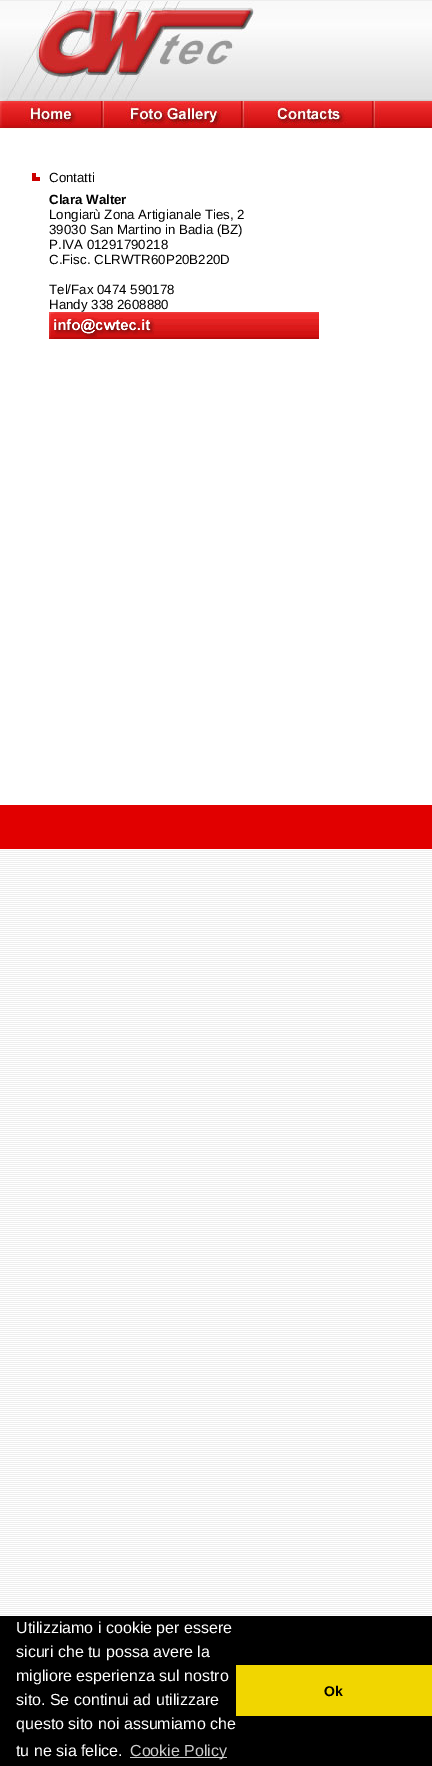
%!PS
<< /PageSize [432 1766] >> setpagedevice
/picture { 5 dict begin { /h /w /y /x /name } { exch def } forall
  gsave x y translate w h scale
  w h 8 [w 0 0 h 0 0] name (r) file false 3 colorimage grestore end } def
0 1766 translate 1 -1 scale
4 setmiterlimit
1 setgray
0 0 432 1766 rectfill
(img1.rgb) 0 0 432 1616 picture
(img2.rgb) 0 1 268 100 picture
(img3.rgb) 268 1 164 100 picture
(img4.rgb) 0 101 102 26 picture
(img5.rgb) 102 101 141 26 picture
(img6.rgb) 243 101 130 26 picture
(img7.rgb) 373 101 59 28 picture
(img8.rgb) 0 127 373 2 picture
0 130 432 31 rectfill
0 162 432 29 rectfill
(img9.rgb) 32 173 8 8 picture
/LiberationSans-Regular [13.3 0 0 -13.3 0 0] selectfont
0 setgray
49 182 moveto (Contatti) show
1 setgray
0 192 432 175 rectfill
/LiberationSans-Bold [13.3 0 0 -13.3 0 0] selectfont
0 setgray
49 204 moveto (Clara Walter) show
/LiberationSans-Regular [13.3 0 0 -13.3 0 0] selectfont
49 219 moveto (Longiarù Zona Artigianale Ties, 2) show
49 234 moveto (39030 San Martino in Badia \(BZ\)) show
49 249 moveto (P.IVA 01291790218) show
49 264 moveto (C.Fisc. CLRWTR60P20B220D) show
49 294 moveto (Tel/Fax 0474 590178) show
49 309 moveto (Handy 338 2608880) show
(img10.rgb) 49 312 270 27 picture
1 setgray
0 368 32 421 rectfill
32 368 17 15 rectfill
49 368 383 421 rectfill
32 384 17 405 rectfill
0 790 432 15 rectfill
0.882 0 0 setrgbcolor
0 805 432 44 rectfill
0 setgray
0 1616 432 150 rectfill
/LiberationSans-Regular [16 0 0 -16 0 0] selectfont
1 setgray
16 1633 moveto (Utilizziamo i cookie per essere) show
16 1657 moveto (sicuri che tu possa avere la) show
16 1681 moveto (migliore esperienza sul nostro) show
16 1705 moveto (sito. Se continui ad utilizzare) show
16 1729 moveto (questo sito noi assumiamo che) show
16 1756 moveto (tu ne sia felice.) show
0.8 setgray
130 1757 97 1 rectfill
130 1756 moveto (Cookie Policy) show
0.945 0.839 0 setrgbcolor
236 1665 196 51 rectfill
/LiberationSans-Bold [14 0 0 -14 0 0] selectfont
0 setgray
324 1696 moveto (Ok) show
showpage
